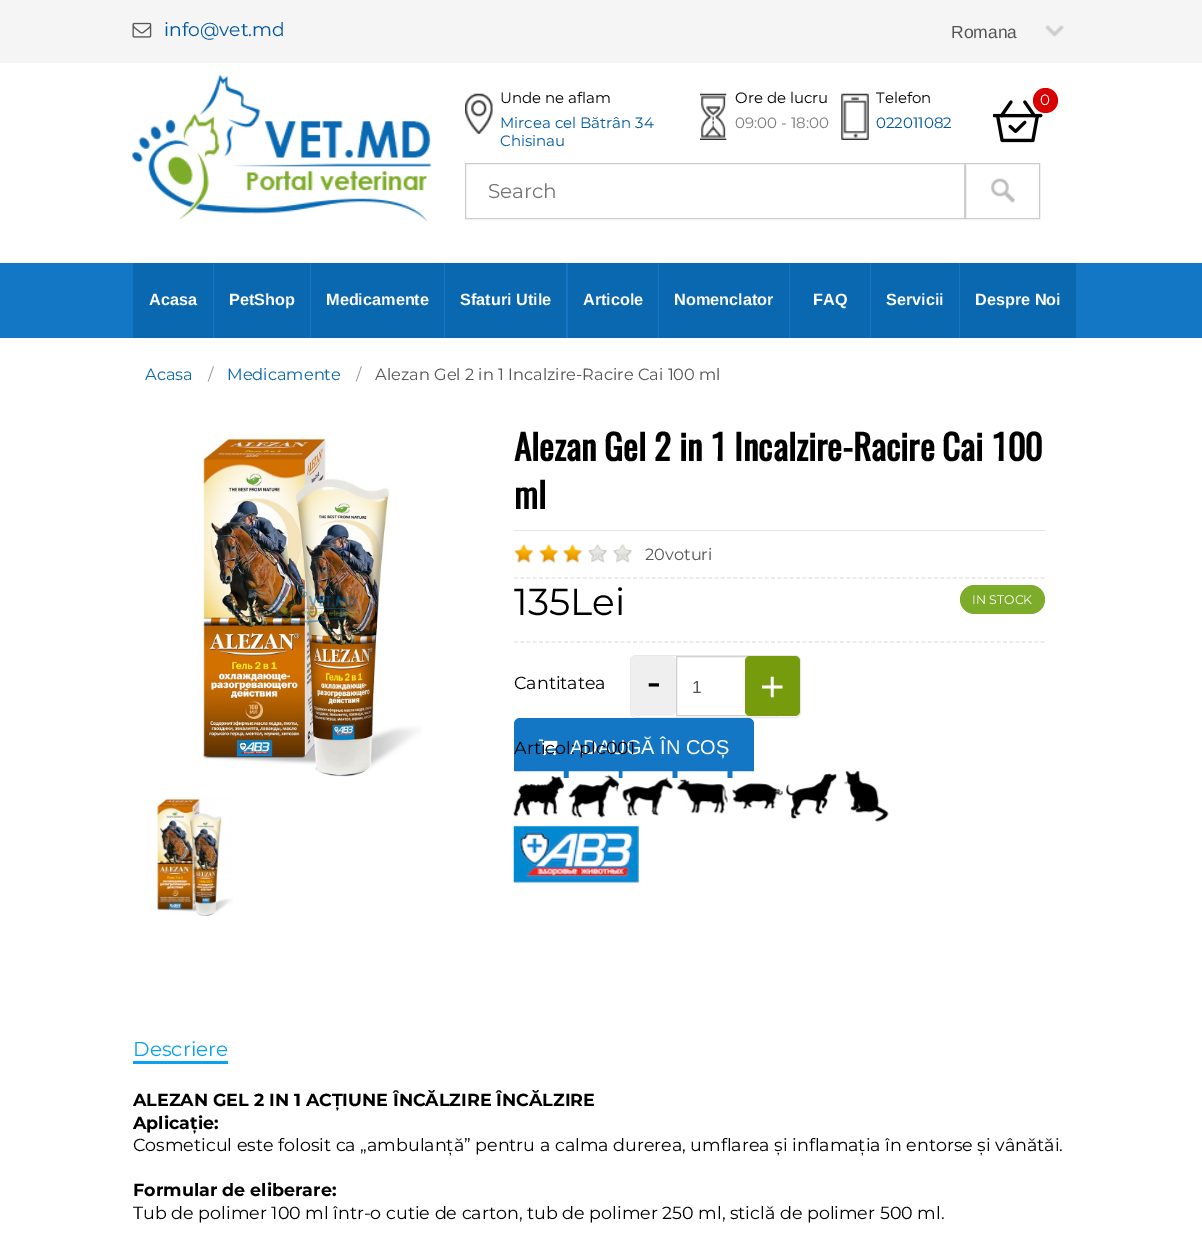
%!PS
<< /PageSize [1202 1255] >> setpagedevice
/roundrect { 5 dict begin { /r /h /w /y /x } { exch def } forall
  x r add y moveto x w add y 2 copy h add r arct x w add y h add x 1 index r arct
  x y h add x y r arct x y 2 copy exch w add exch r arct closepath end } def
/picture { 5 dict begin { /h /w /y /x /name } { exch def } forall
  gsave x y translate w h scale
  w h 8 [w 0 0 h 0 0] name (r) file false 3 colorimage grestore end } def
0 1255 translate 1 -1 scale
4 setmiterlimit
1 setgray
0 0 1202 1255 rectfill
0.961 setgray
0 0 1202 63 rectfill
(img1.rgb) 132 22 20 16 picture
/Montserrat-Regular [18.75 0 0 -18.75 0 0] selectfont
0 0.345 0.635 setrgbcolor
164 36 moveto (info@vet.md) show
(img2.rgb) 1045 25 19 12 picture
/LiberationSans-Regular [17.5 0 0 -17.5 0 0] selectfont
0.333 setgray
951 38 moveto (Romana) show
(img3.rgb) 132 75 300 147 picture
(img4.rgb) 465 93 28 41 picture
/Montserrat-Regular [15 0 0 -15 0 0] selectfont
0 setgray
500 103 moveto (Unde ne aflam) show
0 0.345 0.635 setrgbcolor
500 128 moveto (Mircea cel Bătrân 34) show
500 146 moveto (Chisinau) show
(img5.rgb) 700 93 27 47 picture
0 setgray
735 103 moveto (Ore de lucru) show
0.49 setgray
735 128 moveto (09:00 - 18:00) show
(img6.rgb) 841 93 28 47 picture
0 setgray
876 103 moveto (Telefon) show
0 0.345 0.635 setrgbcolor
876 128 moveto (022011082) show
(img7.rgb) 993 100 50 43 picture
0.859 0 0 setrgbcolor
newpath 1045.5 100.5 12.5 0 360 arc closepath fill
1 setgray
1040 105 moveto (0) show
0.8 setgray
465.5 163.5 499 55 rectstroke
/Montserrat-Regular [20 0 0 -20 0 0] selectfont
0.459 setgray
488 198 moveto (Search) show
(img8.rgb) 991 178 24 25 picture
0.8 setgray
965.5 163.5 74 55 rectstroke
0.075 0.467 0.773 setrgbcolor
0 263 1202 75 rectfill
0.039 0.408 0.694 setrgbcolor
133 263 80 75 rectfill
/LiberationSans-Bold [16.25 0 0 -16.25 0 0] selectfont
1 setgray
149 305 moveto (Acasa) show
0.039 0.408 0.694 setrgbcolor
214 263 96 75 rectfill
1 setgray
229 305 moveto (PetShop) show
0.039 0.408 0.694 setrgbcolor
311 263 133 75 rectfill
1 setgray
326 305 moveto (Medicamente) show
0.039 0.408 0.694 setrgbcolor
445 263 121 75 rectfill
1 setgray
460 305 moveto (Sfaturi Utile) show
0.039 0.408 0.694 setrgbcolor
568 263 90 75 rectfill
1 setgray
583 305 moveto (Articole) show
0.039 0.408 0.694 setrgbcolor
659 263 130 75 rectfill
1 setgray
674 305 moveto (Nomenclator) show
0.039 0.408 0.694 setrgbcolor
790 263 80 75 rectfill
1 setgray
813 305 moveto (FAQ) show
0.039 0.408 0.694 setrgbcolor
871 263 88 75 rectfill
1 setgray
886 305 moveto (Servicii) show
0.039 0.408 0.694 setrgbcolor
960 263 116 75 rectfill
1 setgray
975 305 moveto (Despre Noi) show
/Montserrat-Regular [16.25 0 0 -16.25 0 0] selectfont
0.039 0.408 0.694 setrgbcolor
145 380 moveto (Acasa) show
0.6 setgray
208 380 moveto (/) show
0.039 0.408 0.694 setrgbcolor
227 380 moveto (Medicamente) show
0.6 setgray
356 380 moveto (/) show
0.333 setgray
375 380 moveto (Alezan Gel 2 in 1 Incalzire-Racire Cai 100 ml) show
(img9.rgb) 202 434 220 343 picture
(img10.rgb) 156 798 77 118 picture
0.898 setgray
514 530 531 1 rectfill
/Oswald-Bold [35 0 0 -35 0 0] selectfont
0 setgray
514 461 moveto (Alezan Gel 2 in 1 Incalzire-Racire Cai 100) show
514 509 moveto (ml) show
0.898 setgray
1.2 setlinewidth
[3.75 2.52] 0 setdash
newpath 514 578 moveto 1045 578 lineto stroke
(img11.rgb) 514 543 20 20 picture
(img11.rgb) 539 543 20 20 picture
(img12.rgb) 562 543 21 20 picture
(img13.rgb) 588 544 20 19 picture
(img14.rgb) 613 544 20 19 picture
/Montserrat-Regular [16.25 0 0 -16.25 0 0] selectfont
0.333 setgray
645 560 moveto (20voturi) show
0.898 setgray
newpath 514 642 moveto 1045 642 lineto stroke
/Montserrat-Regular [37.5 0 0 -37.5 0 0] selectfont
0 setgray
514 615 moveto (135Lei) show
0.49 0.671 0.165 setrgbcolor
960 585 85 29 14.5 roundrect fill
/Montserrat-Regular [12.5 0 0 -12.5 0 0] selectfont
1 setgray
972 604 moveto (IN STOCK) show
/Montserrat-Regular [17.5 0 0 -17.5 0 0] selectfont
0 setgray
514 689 moveto (Cantitatea) show
0.914 0.914 0.929 setrgbcolor
1 setlinewidth
[] 0 setdash
630.5 655.5 170 62 5.5 roundrect stroke
0.937 setgray
631 656 45 60 5 roundrect fill
/LiberationSans-Regular [42 0 0 -42 0 0] selectfont
0 setgray
647 696 moveto (-) show
0.82 setgray
676.5 656.5 101 59 rectstroke
/LiberationSans-Regular [17.5 0 0 -17.5 0 0] selectfont
0.333 setgray
692 693 moveto (1) show
0.463 0.608 0.051 setrgbcolor
745 656 55 60 5 roundrect fill
/LiberationSans-Regular [42 0 0 -42 0 0] selectfont
1 setgray
760 701 moveto (+) show
0.075 0.467 0.773 setrgbcolor
514 718 240 60 6 roundrect fill
(img15.rgb) 538 739 20 17 picture
/LiberationSans-Regular [20 0 0 -20 0 0] selectfont
1 setgray
570 754 moveto (ADAUGĂ ÎN COȘ) show
/Montserrat-Regular [17.5 0 0 -17.5 0 0] selectfont
0 setgray
514 754 moveto (Articol: plc001) show
(img16.rgb) 513 771 51 46 picture
(img17.rgb) 568 771 51 47 picture
(img18.rgb) 622 771 51 46 picture
(img19.rgb) 677 771 51 43 picture
(img20.rgb) 732 771 51 39 picture
(img21.rgb) 786 773 51 46 picture
(img22.rgb) 844 771 45 51 picture
(img23.rgb) 513 826 126 57 picture
0.039 0.635 0.933 setrgbcolor
133 1061 95 3 rectfill
/Montserrat-Regular [20 0 0 -20 0 0] selectfont
133 1056 moveto (Descriere) show
/Montserrat-Bold [17.5 0 0 -17.5 0 0] selectfont
0 setgray
133 1106 moveto (ALEZAN GEL 2 IN 1 ACȚIUNE ÎNCĂLZIRE ÎNCĂLZIRE) show
133 1129 moveto (Aplicație:) show
/Montserrat-Regular [17.5 0 0 -17.5 0 0] selectfont
133 1151 moveto (Cosmeticul este folosit ca „ambulanță” pentru a calma durerea, umflarea și inflamația în entorse și vânătăi.) show
/Montserrat-Bold [17.5 0 0 -17.5 0 0] selectfont
133 1196 moveto (Formular de eliberare:) show
/Montserrat-Regular [17.5 0 0 -17.5 0 0] selectfont
133 1219 moveto (Tub de polimer 100 ml într-o cutie de carton, tub de polimer 250 ml, sticlă de polimer 500 ml.) show
showpage
